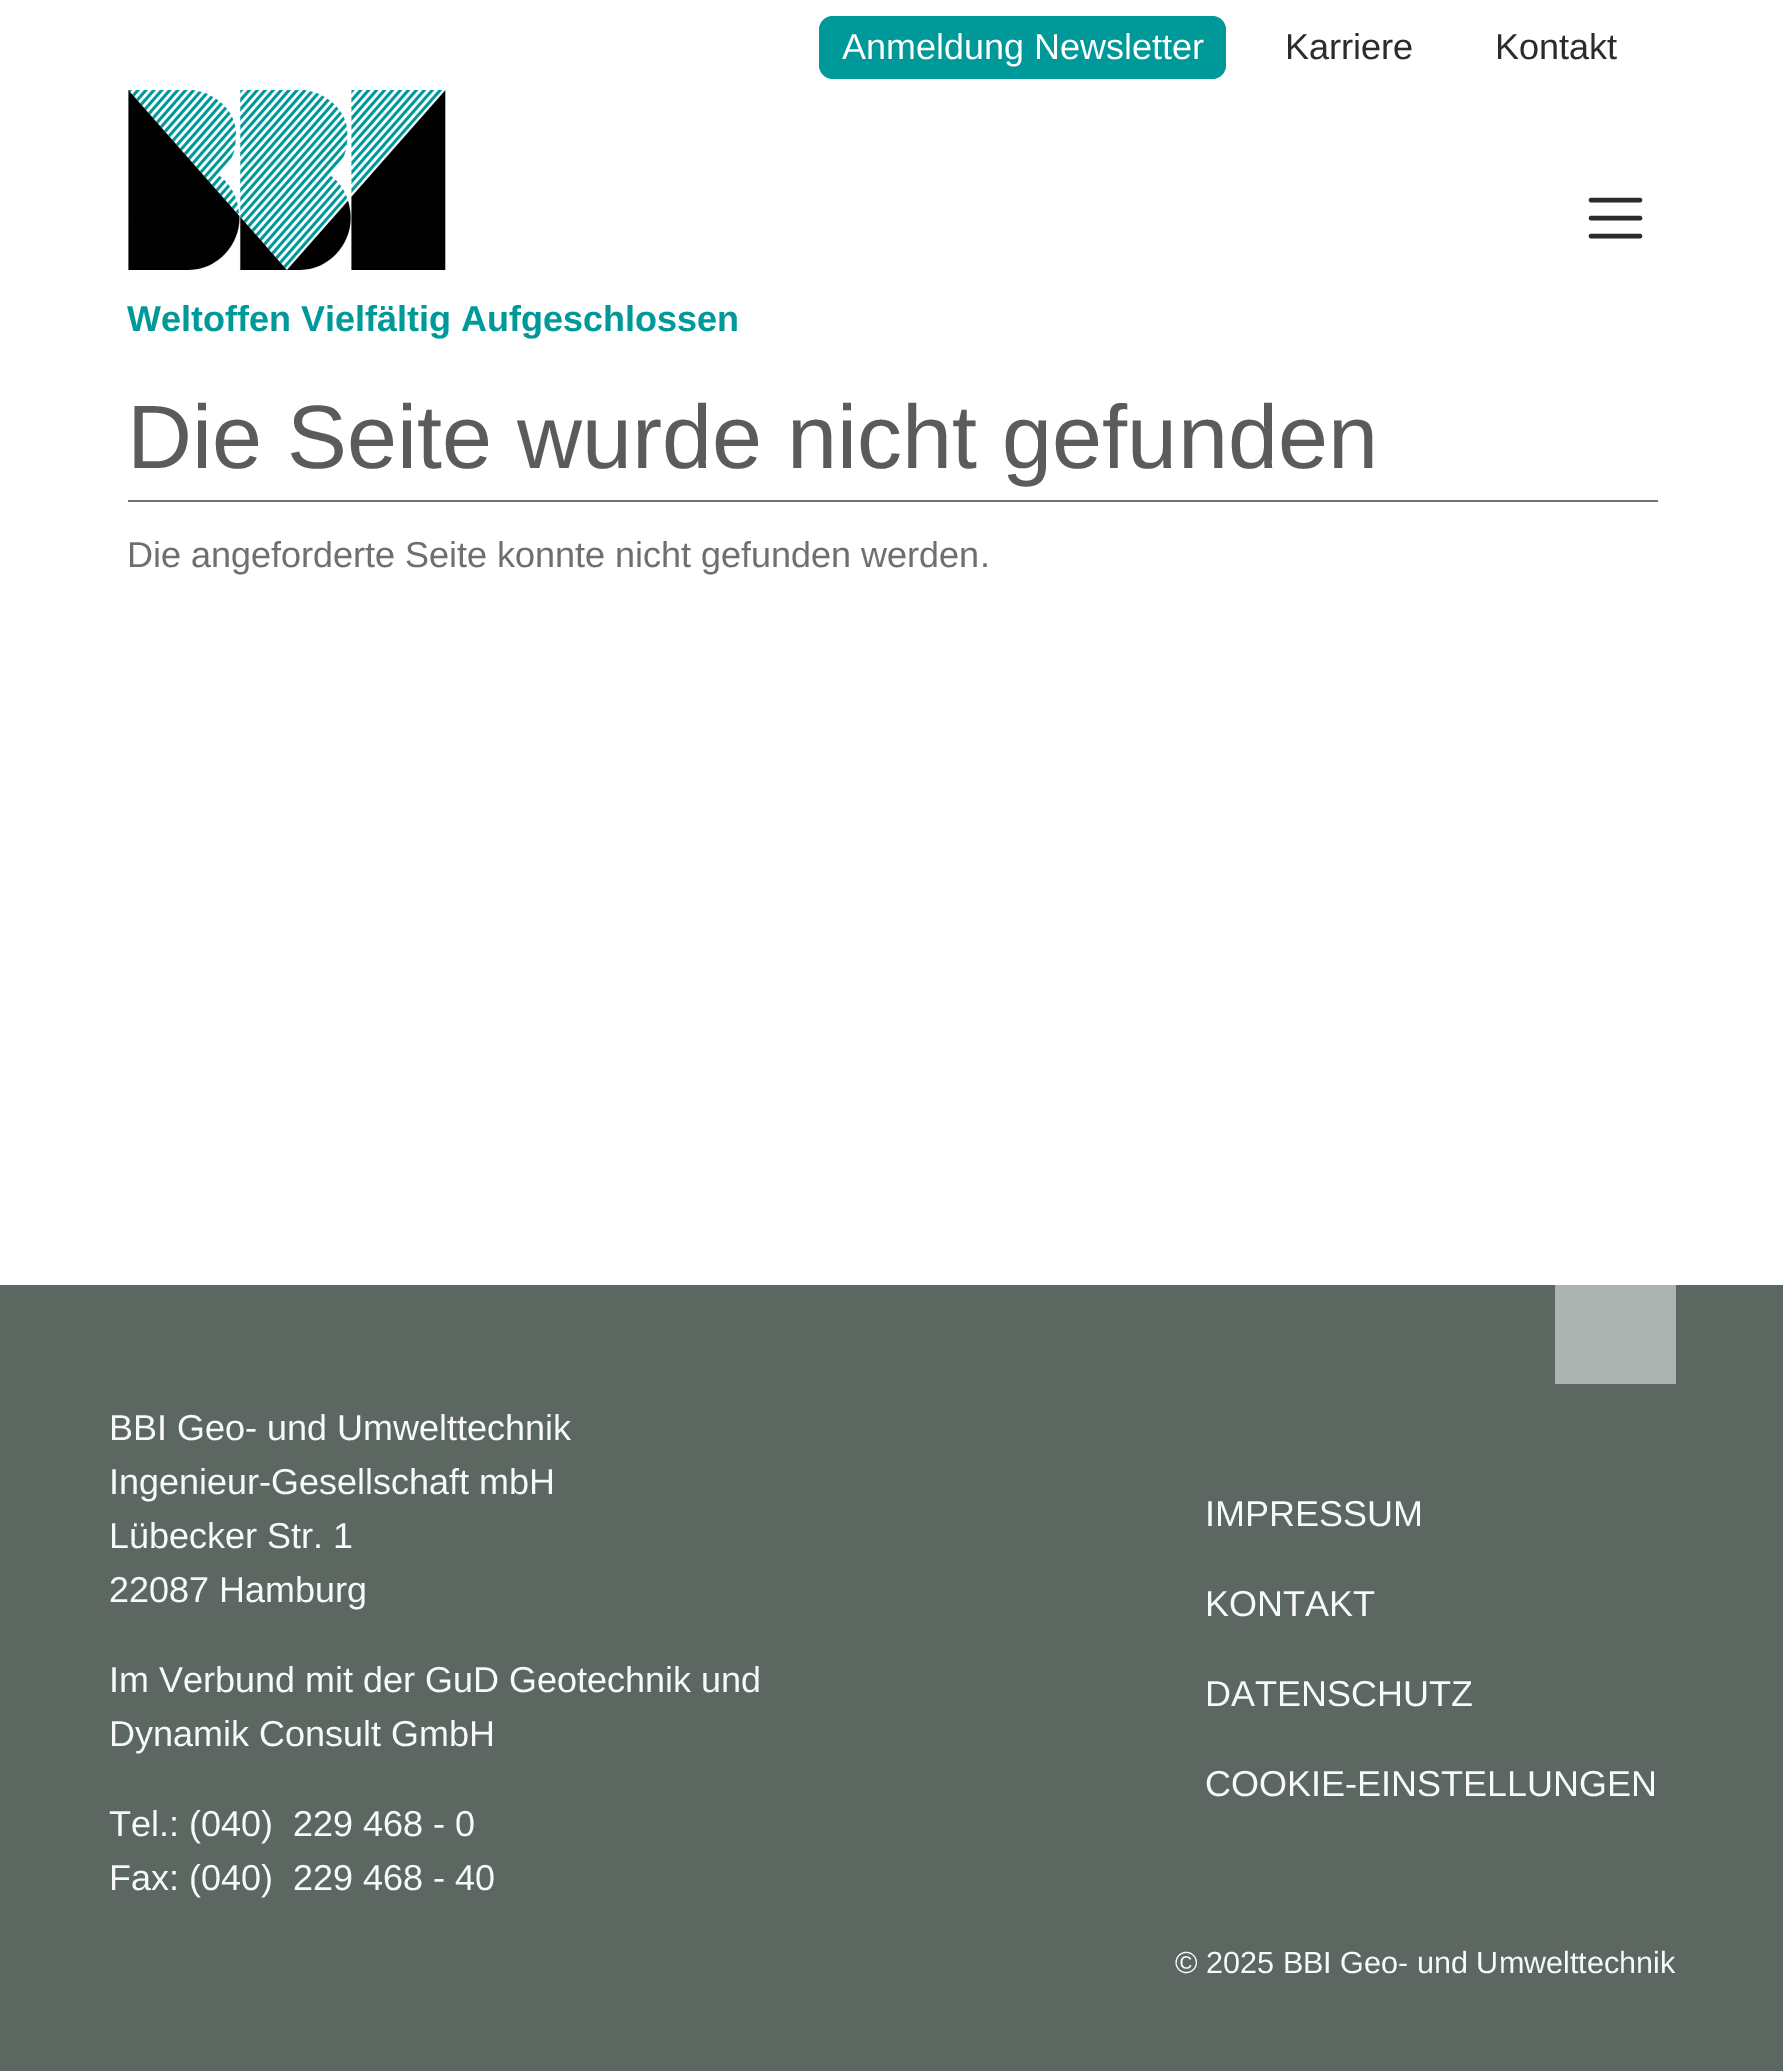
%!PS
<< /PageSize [1783 2071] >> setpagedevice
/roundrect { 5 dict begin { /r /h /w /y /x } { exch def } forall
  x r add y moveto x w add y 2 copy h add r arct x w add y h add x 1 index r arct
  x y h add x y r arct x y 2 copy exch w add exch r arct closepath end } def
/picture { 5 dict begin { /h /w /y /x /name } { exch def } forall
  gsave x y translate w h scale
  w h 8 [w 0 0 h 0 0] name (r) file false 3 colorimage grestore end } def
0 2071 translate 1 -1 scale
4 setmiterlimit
1 setgray
0 0 1783 2071 rectfill
0 0.6 0.604 setrgbcolor
819 16 407 63 14 roundrect fill
/LiberationSans-Regular [36 0 0 -36 0 0] selectfont
1 setgray
842 59 moveto (Anmeldung Newsletter) show
0.173 setgray
1285 59 moveto (Karriere) show
1495 59 moveto (Kontakt) show
4.5 setlinewidth
1 setlinecap
newpath 1591 200 moveto 1640 200 lineto 1591 218 moveto 1640 218 lineto 1591 236 moveto 1640 236 lineto stroke
(img1.rgb) 128 90 318 180 picture
/LiberationSans-Bold [36 0 0 -36 0 0] selectfont
0 0.6 0.604 setrgbcolor
127 331 moveto (Weltoffen Vielfältig Aufgeschlossen) show
0.435 setgray
128 500 1530 2 rectfill
/LiberationSans-Regular [90 0 0 -90 0 0] selectfont
0.357 setgray
127 468 moveto (Die Seite wurde nicht gefunden) show
/LiberationSans-Regular [36 0 0 -36 0 0] selectfont
0.435 setgray
127 567 moveto (Die angeforderte Seite konnte nicht gefunden werden.) show
0.357 0.404 0.376 setrgbcolor
0 1285 1783 786 rectfill
0.678 0.702 0.69 setrgbcolor
1555 1285 121 99 rectfill
0.973 0.976 0.98 setrgbcolor
109 1440 moveto (BBI Geo- und Umwelttechnik) show
109 1494 moveto (Ingenieur-Gesellschaft mbH) show
109 1548 moveto (Lübecker Str. 1) show
109 1602 moveto (22087 Hamburg) show
109 1692 moveto (Im Verbund mit der GuD Geotechnik und) show
109 1746 moveto (Dynamik Consult GmbH) show
109 1836 moveto (Tel.: \(040\)  229 468 - 0) show
109 1890 moveto (Fax: \(040\)  229 468 - 40) show
1205 1526 moveto (IMPRESSUM) show
1205 1616 moveto (KONTAKT) show
1205 1706 moveto (DATENSCHUTZ) show
1205 1796 moveto (COOKIE-EINSTELLUNGEN) show
/LiberationSans-Regular [30.6 0 0 -30.6 0 0] selectfont
1175 1973 moveto (© 2025 BBI Geo- und Umwelttechnik) show
showpage
